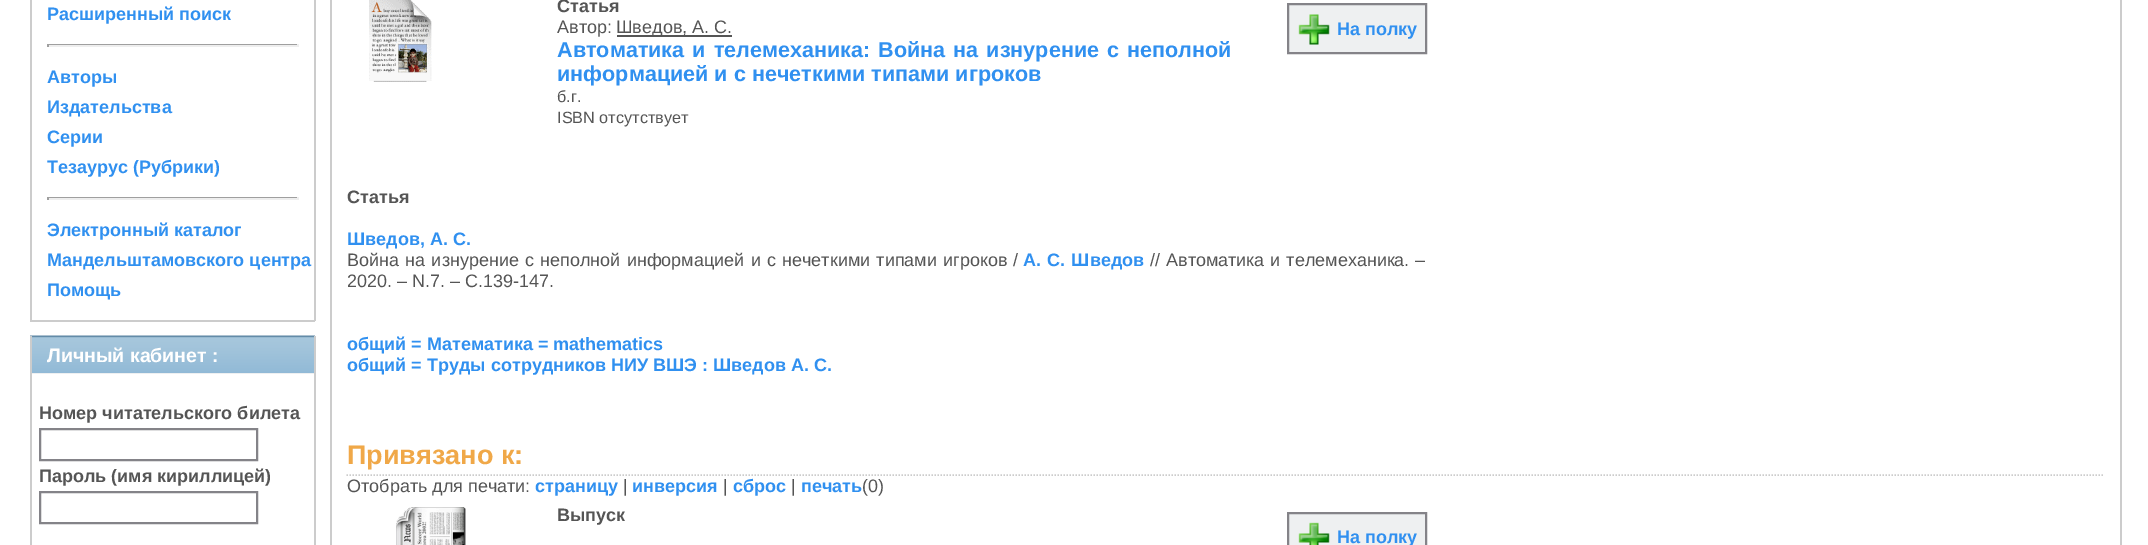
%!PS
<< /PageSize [2148 545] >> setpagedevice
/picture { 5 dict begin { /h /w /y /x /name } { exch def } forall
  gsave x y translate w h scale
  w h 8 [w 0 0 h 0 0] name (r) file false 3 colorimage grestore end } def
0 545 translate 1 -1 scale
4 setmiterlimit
1 setgray
0 0 2148 545 rectfill
0.8 setgray
314 0 2 321 rectfill
30 320 285 2 rectfill
30 0 2 321 rectfill
/LiberationSans-Bold [18 0 0 -18 0 0] selectfont
0.188 0.565 0.941 setrgbcolor
47 20 moveto (Расширенный поиск) show
0.624 setgray
47 44 252 1 rectfill
0.933 setgray
297 44 2 3 rectfill
47 45 252 2 rectfill
0.624 setgray
47 44 2 3 rectfill
0.188 0.565 0.941 setrgbcolor
47 83 moveto (Авторы) show
47 113 moveto (Издательства) show
47 143 moveto (Серии) show
47 173 moveto (Тезаурус \(Рубрики\)) show
0.624 setgray
47 197 252 1 rectfill
0.933 setgray
297 197 2 3 rectfill
47 198 252 2 rectfill
0.624 setgray
47 197 2 3 rectfill
0.188 0.565 0.941 setrgbcolor
47 236 moveto (Электронный каталог) show
47 266 moveto (Мандельштамовского центра) show
47 296 moveto (Помощь) show
0.933 0.941 0.945 setrgbcolor
32 373 282 1 rectfill
(img1.rgb) 30 335 285 38 picture
0.8 setgray
314 336 2 209 rectfill
30 336 2 209 rectfill
/LiberationSans-Bold [19.5 0 0 -19.5 0 0] selectfont
1 setgray
47 362 moveto (Личный кабинет :) show
/LiberationSans-Bold [18 0 0 -18 0 0] selectfont
0.333 setgray
39 419 moveto (Номер читательского билета) show
0.518 0.514 0.533 setrgbcolor
2 setlinewidth
40 429 217 31 rectstroke
0.333 setgray
39 482 moveto (Пароль \(имя кириллицей\)) show
0.518 0.514 0.533 setrgbcolor
40 492 217 31 rectstroke
0.8 setgray
2120 0 2 545 rectfill
330 0 2 545 rectfill
(img2.rgb) 369 0 63 82 picture
0.333 setgray
557 12 moveto (Статья) show
/LiberationSans-Regular [18 0 0 -18 0 0] selectfont
557 33 moveto (Автор:) show
617 35 115 2 rectfill
616 33 moveto (Шведов, А. С.) show
/LiberationSans-Bold [21.6 0 0 -21.6 0 0] selectfont
0.188 0.565 0.941 setrgbcolor
557 57 moveto 2 0 32 (Автоматика и телемеханика: Война на изнурение с неполной) widthshow
557 81 moveto (информацией и с нечеткими типами игроков) show
/LiberationSans-Regular [16.25 0 0 -16.25 0 0] selectfont
0.333 setgray
557 102 moveto (б.г.) show
557 123 moveto (ISBN отсутствует) show
0.933 0.941 0.945 setrgbcolor
newpath 1288 4 moveto 1426 4 lineto 1426 53 lineto 1288 53 lineto closepath gsave fill grestore
0.518 0.514 0.533 setrgbcolor
stroke
(img3.rgb) 1298 14 32 31 picture
/LiberationSans-Bold [18 0 0 -18 0 0] selectfont
0.188 0.565 0.941 setrgbcolor
1337 35 moveto (На полку) show
0.333 setgray
347 203 moveto (Статья) show
0.188 0.565 0.941 setrgbcolor
347 245 moveto (Шведов, А. С.) show
/LiberationSans-Regular [18 0 0 -18 0 0] selectfont
0.333 setgray
347 266 moveto 1.25 0 32 (Война на изнурение с неполной информацией и с нечеткими типами игроков /) widthshow
/LiberationSans-Bold [18 0 0 -18 0 0] selectfont
0.188 0.565 0.941 setrgbcolor
1023 266 moveto 1.25 0 32 (А. С. Шведов) widthshow
/LiberationSans-Regular [18 0 0 -18 0 0] selectfont
0.333 setgray
1150 266 moveto (//) show
1166 266 moveto 1 0 32 (Автоматика и телемеханика. –) widthshow
347 287 moveto (2020. – N.7. – С.139-147.) show
/LiberationSans-Bold [18 0 0 -18 0 0] selectfont
0.188 0.565 0.941 setrgbcolor
347 350 moveto (общий = Математика = mathematics) show
347 371 moveto (общий = Труды сотрудников НИУ ВШЭ : Шведов А. С.) show
0.8 setgray
1.5 setlinewidth
[1.5 1.5] 0 setdash
newpath 346.5 475 moveto 2104.5 475 lineto stroke
/LiberationSans-Bold [27 0 0 -27 0 0] selectfont
0.941 0.659 0.282 setrgbcolor
347 464 moveto (Привязано к:) show
/LiberationSans-Regular [18 0 0 -18 0 0] selectfont
0.333 setgray
347 492 moveto (Отобрать для печати:) show
/LiberationSans-Bold [18 0 0 -18 0 0] selectfont
0.188 0.565 0.941 setrgbcolor
535 492 moveto (страницу) show
/LiberationSans-Regular [18 0 0 -18 0 0] selectfont
0.333 setgray
623 492 moveto (|) show
/LiberationSans-Bold [18 0 0 -18 0 0] selectfont
0.188 0.565 0.941 setrgbcolor
632 492 moveto (инверсия) show
/LiberationSans-Regular [18 0 0 -18 0 0] selectfont
0.333 setgray
723 492 moveto (|) show
/LiberationSans-Bold [18 0 0 -18 0 0] selectfont
0.188 0.565 0.941 setrgbcolor
733 492 moveto (сброс) show
/LiberationSans-Regular [18 0 0 -18 0 0] selectfont
0.333 setgray
791 492 moveto (|) show
/LiberationSans-Bold [18 0 0 -18 0 0] selectfont
0.188 0.565 0.941 setrgbcolor
801 492 moveto (печать) show
/LiberationSans-Regular [18 0 0 -18 0 0] selectfont
0.333 setgray
862 492 moveto (\(0\)) show
(img4.rgb) 396 507 70 38 picture
/LiberationSans-Bold [18 0 0 -18 0 0] selectfont
557 521 moveto (Выпуск) show
0.933 0.941 0.945 setrgbcolor
newpath 1288 513 moveto 1426 513 lineto 1426 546 lineto 1288 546 lineto closepath gsave fill grestore
0.518 0.514 0.533 setrgbcolor
2 setlinewidth
[] 0 setdash
stroke
(img5.rgb) 1298 522 32 23 picture
0.188 0.565 0.941 setrgbcolor
1337 543 moveto (На полку) show
showpage
